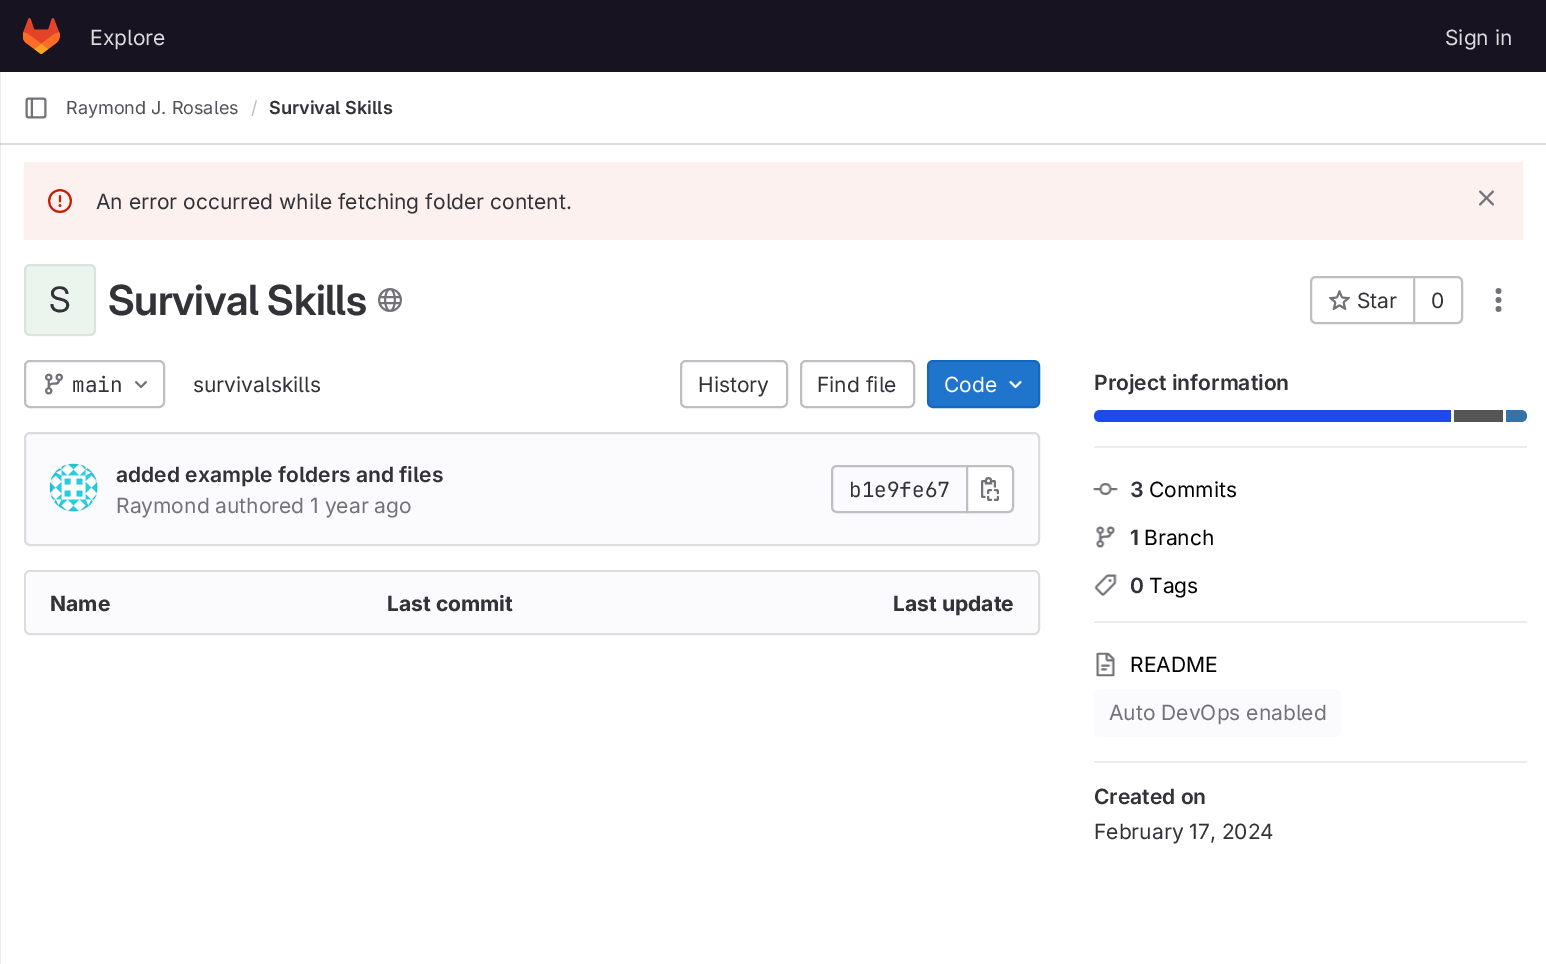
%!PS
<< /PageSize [1546 964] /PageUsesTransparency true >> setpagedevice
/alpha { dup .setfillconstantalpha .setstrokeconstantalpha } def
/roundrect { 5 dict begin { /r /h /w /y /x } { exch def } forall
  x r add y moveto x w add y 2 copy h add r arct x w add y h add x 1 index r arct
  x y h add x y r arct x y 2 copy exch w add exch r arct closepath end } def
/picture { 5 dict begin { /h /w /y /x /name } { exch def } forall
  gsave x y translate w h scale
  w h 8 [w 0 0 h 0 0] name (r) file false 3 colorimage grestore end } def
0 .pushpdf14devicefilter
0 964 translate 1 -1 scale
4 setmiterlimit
1 setgray
0 0 1546 964 rectfill
0.929 setgray
0 72 1 892 rectfill
0.09 0.075 0.129 setrgbcolor
0 0 1546 72 rectfill
(img1.rgb) 23 18 37 36 picture
/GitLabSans-Regular [21 0 0 -21 0 0] selectfont
0.863 0.863 0.871 setrgbcolor
90 45 moveto (Explore) show
1445 45 moveto (Sign in) show
0 143 1546 2 rectfill
0.804 0.804 0.812 setrgbcolor
0 143 1 2 rectfill
(img2.rgb) 25 97 22 22 picture
/GitLabSans-Regular [18 0 0 -18 0 0] selectfont
0.325 0.318 0.345 setrgbcolor
66 114 moveto (Raymond J. Rosales) show
0.749 0.749 0.765 setrgbcolor
251 114 moveto (/) show
/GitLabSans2-SemiBold [18 0 0 -18 0 0] selectfont
0.2 0.196 0.22 setrgbcolor
269 114 moveto (Survival Skills) show
0.988 0.945 0.937 setrgbcolor
24 162 1499 78 rectfill
(img3.rgb) 48 189 24 24 picture
/GitLabSans-Regular [21 0 0 -21 0 0] selectfont
0.2 0.196 0.22 setrgbcolor
96 209 moveto (An error occurred while fetching folder content.) show
(img4.rgb) 1479 190 15 16 picture
0.925 0.957 0.933 setrgbcolor
24 264 72 72 6 roundrect fill
0.08 alpha
0.122 0.118 0.141 setrgbcolor
2 setlinewidth
25 265 70 70 5 roundrect stroke
/GitLabSans2-Regular [35 0 0 -35 0 0] selectfont
1 alpha
0.2 0.196 0.22 setrgbcolor
49 312 moveto (S) show
/GitLabSans-SemiBold [41.5 0 0 -41.5 0 0] selectfont
108 315 moveto -0.4 0 (Survival Skills) ashow
(img5.rgb) 378 288 24 24 picture
0.749 0.749 0.765 setrgbcolor
newpath 1316 277 moveto 1414 277 lineto 1414 323 lineto 1316 323 lineto 1313 323 1311 321 1311 318 curveto 1311 282 lineto 1311 279 1313 277 1316 277 curveto closepath stroke
(img6.rgb) 1329 290 21 20 picture
/GitLabSans-Regular [21 0 0 -21 0 0] selectfont
0.2 0.196 0.22 setrgbcolor
1357 308 moveto (Star) show
1 setgray
newpath 1414 277 moveto 1457 277 lineto 1460 277 1462 279 1462 282 curveto 1462 318 lineto 1462 321 1460 323 1457 323 curveto 1414 323 lineto closepath gsave fill grestore
0.749 0.749 0.765 setrgbcolor
stroke
0.2 0.196 0.22 setrgbcolor
1431 308 moveto (0) show
(img7.rgb) 1495 288 7 24 picture
0.749 0.749 0.765 setrgbcolor
25 361 139 46 5 roundrect stroke
(img8.rgb) 45 373 18 22 picture
/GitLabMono-Regular [21 0 0 -21 0 0] selectfont
0.2 0.196 0.22 setrgbcolor
72 392 moveto (main) show
(img9.rgb) 135 381 12 8 picture
/GitLabSans-Regular [21 0 0 -21 0 0] selectfont
193 392 moveto (survivalskills) show
0.749 0.749 0.765 setrgbcolor
681 361 106 46 5 roundrect stroke
0.2 0.196 0.22 setrgbcolor
698 392 moveto (History) show
0.749 0.749 0.765 setrgbcolor
801 361 113 46 5 roundrect stroke
0.2 0.196 0.22 setrgbcolor
817 392 moveto (Find file) show
0.122 0.459 0.796 setrgbcolor
928 361 111 46 5 roundrect gsave fill grestore
0.063 0.408 0.749 setrgbcolor
stroke
1 setgray
944 392 moveto (Code) show
(img10.rgb) 1009 381 13 8 picture
0.984 0.98 0.992 setrgbcolor
25 433 1014 112 5 roundrect gsave fill grestore
0.863 0.863 0.871 setrgbcolor
stroke
(img11.rgb) 49 463 49 49 picture
0.08 alpha
0.122 0.118 0.141 setrgbcolor
newpath 74 488 23 0 360 arc closepath stroke
/GitLabSans2-SemiBold [21 0 0 -21 0 0] selectfont
1 alpha
0.2 0.196 0.22 setrgbcolor
116 482 moveto (added example folders and files) show
/GitLabSans-Regular [21 0 0 -21 0 0] selectfont
0.451 0.447 0.471 setrgbcolor
116 513 moveto (Raymond authored 1 year ago) show
0.749 0.749 0.765 setrgbcolor
newpath 837 466 moveto 967 466 lineto 967 512 lineto 837 512 lineto 834 512 832 510 832 507 curveto 832 471 lineto 832 468 834 466 837 466 curveto closepath stroke
/GitLabMono-Regular [21 0 0 -21 0 0] selectfont
0.2 0.196 0.22 setrgbcolor
849 497 moveto (b1e9fe67) show
1 setgray
newpath 967 466 moveto 1008 466 lineto 1011 466 1013 468 1013 471 curveto 1013 507 lineto 1013 510 1011 512 1008 512 curveto 967 512 lineto closepath gsave fill grestore
0.749 0.749 0.765 setrgbcolor
stroke
(img12.rgb) 981 477 18 24 picture
0.863 0.863 0.871 setrgbcolor
25 571 1014 63 5 roundrect stroke
0.984 0.98 0.992 setrgbcolor
newpath 31 572 moveto 363 572 lineto 363 633 lineto 31 633 lineto 28 633 26 631 26 628 curveto 26 577 lineto 26 574 28 572 31 572 curveto closepath fill
/GitLabSans-Bold [21 0 0 -21 0 0] selectfont
0.2 0.196 0.22 setrgbcolor
50 611 moveto (Name) show
0.984 0.98 0.992 setrgbcolor
363 572 338 61 rectfill
0.2 0.196 0.22 setrgbcolor
387 611 moveto (Last commit) show
0.984 0.98 0.992 setrgbcolor
newpath 701 572 moveto 1033 572 lineto 1036 572 1038 574 1038 577 curveto 1038 628 lineto 1038 631 1036 633 1033 633 curveto 701 633 lineto closepath fill
0.2 0.196 0.22 setrgbcolor
893 611 moveto (Last update) show
0.925 0.925 0.937 setrgbcolor
1094 446 433 2 rectfill
/GitLabSans2-SemiBold [21 0 0 -21 0 0] selectfont
0.2 0.196 0.22 setrgbcolor
1094 390 moveto (Project information) show
0.118 0.29 0.925 setrgbcolor
newpath 1100 410 moveto 1451 410 lineto 1451 422 lineto 1100 422 lineto 1096.5 422 1094 419.5 1094 416 curveto 1094 412.5 1096.5 410 1100 410 curveto closepath fill
0.333 setgray
1454 410 49 12 rectfill
0.208 0.447 0.647 setrgbcolor
newpath 1506 410 moveto 1521 410 lineto 1524.5 410 1527 412.5 1527 416 curveto 1527 419.5 1524.5 422 1521 422 curveto 1506 422 lineto closepath fill
0.925 0.925 0.937 setrgbcolor
1094 621 433 2 rectfill
(img13.rgb) 1093 483 25 12 picture
0.2 0.196 0.22 setrgbcolor
1130 497 moveto (3) show
/GitLabSans-Regular [21 0 0 -21 0 0] selectfont
0 setgray
1149 497 moveto (Commits) show
(img14.rgb) 1096 526 19 22 picture
/GitLabSans2-SemiBold [21 0 0 -21 0 0] selectfont
0.2 0.196 0.22 setrgbcolor
1130 545 moveto (1) show
/GitLabSans-Regular [21 0 0 -21 0 0] selectfont
0 setgray
1144 545 moveto (Branch) show
(img15.rgb) 1094 574 23 22 picture
/GitLabSans2-SemiBold [21 0 0 -21 0 0] selectfont
0.2 0.196 0.22 setrgbcolor
1130 593 moveto (0) show
/GitLabSans-Regular [21 0 0 -21 0 0] selectfont
0 setgray
1149 593 moveto (Tags) show
0.925 0.925 0.937 setrgbcolor
1094 761 433 2 rectfill
(img16.rgb) 1096 652 19 25 picture
0 setgray
1130 672 moveto (README) show
0.984 0.98 0.992 setrgbcolor
1094 689 247 48 6 roundrect fill
0.451 0.447 0.471 setrgbcolor
1109 720 moveto (Auto DevOps enabled) show
/GitLabSans2-SemiBold [21 0 0 -21 0 0] selectfont
0.2 0.196 0.22 setrgbcolor
1094 804 moveto (Created on) show
/GitLabSans-Regular [21 0 0 -21 0 0] selectfont
1094 839 moveto (February 17, 2024) show
.poppdf14devicefilter showpage
